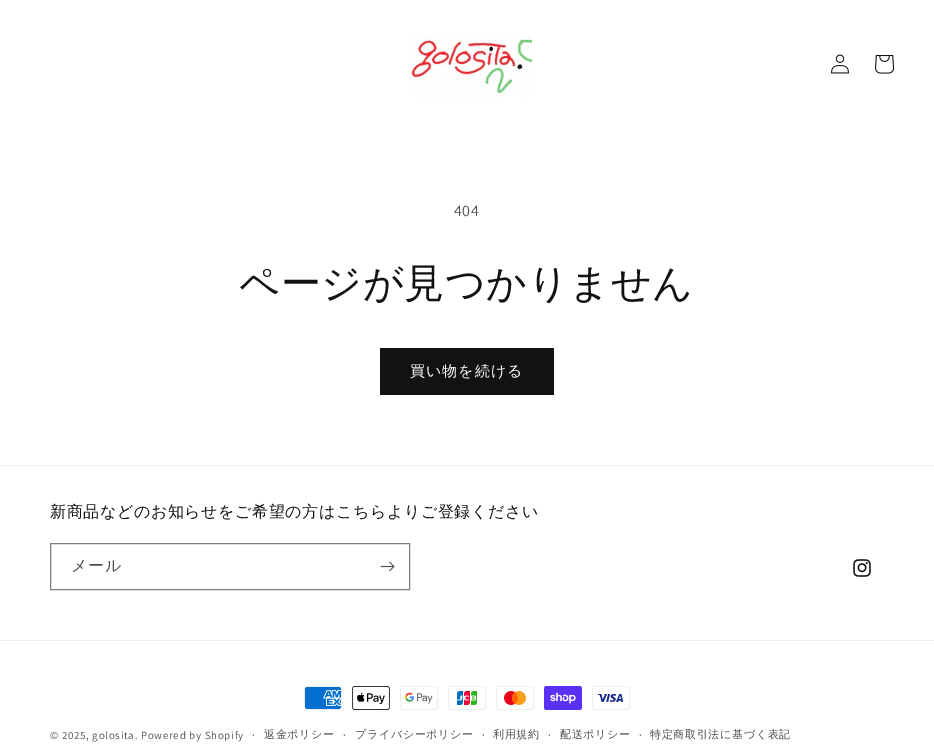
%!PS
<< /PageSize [934 745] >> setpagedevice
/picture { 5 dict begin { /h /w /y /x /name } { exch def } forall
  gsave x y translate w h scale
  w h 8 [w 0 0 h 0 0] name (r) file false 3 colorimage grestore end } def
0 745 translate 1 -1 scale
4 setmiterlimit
1 setgray
0 0 934 745 rectfill
(img1.rgb) 410 34 122 64 picture
(img2.rgb) 831 54 18 20 picture
(img3.rgb) 875 55 20 19 picture
/Assistant-Regular [16 0 0 -16 0 0] selectfont
0.302 setgray
454 216 moveto 0.6 0 (404) ashow
/WenQuanYiZenHei-Medium [40 0 0 -40 0 0] selectfont
0.071 setgray
239 297 moveto 0.6 0 (ページが見つかりません) ashow
380 348 174 47 rectfill
/WenQuanYiZenHei-Medium [15 0 0 -15 0 0] selectfont
1 setgray
410 376 moveto 1 0 (買い物を続ける) ashow
0.925 setgray
0 465 934 1 rectfill
/WenQuanYiZenHei-Medium [16 0 0 -16 0 0] selectfont
0.071 setgray
50 517 moveto 0.6 0 (新商品などのお知らせをご希望の方はこちらよりご登録ください) ashow
0.49 setgray
50.5 543.5 359 46 rectstroke
0.302 setgray
71 571 moveto 1 0 (メール) ashow
(img4.rgb) 380 561 15 11 picture
(img5.rgb) 853 559 18 18 picture
0.925 setgray
0 640 934 1 rectfill
(img6.rgb) 304 686 38 24 picture
(img7.rgb) 352 686 38 24 picture
(img8.rgb) 400 686 38 24 picture
(img9.rgb) 448 686 38 24 picture
(img10.rgb) 496 686 38 24 picture
(img11.rgb) 544 686 38 24 picture
(img12.rgb) 592 686 38 24 picture
/Assistant-Regular [11 0 0 -11 0 0] selectfont
0.302 setgray
50 739 moveto 0.7 0 (© 2025, golosita. Powered by Shopify) ashow
/Assistant-Regular [12 0 0 -12 0 0] selectfont
252 739 moveto 0.7 0 (·) ashow
/WenQuanYiZenHei-Medium [11 0 0 -11 0 0] selectfont
264 738 moveto 0.7 0 (返金ポリシー) ashow
/Assistant-Regular [12 0 0 -12 0 0] selectfont
343 739 moveto 0.7 0 (·) ashow
/WenQuanYiZenHei-Medium [11 0 0 -11 0 0] selectfont
355 738 moveto 0.7 0 (プライバシーポリシー) ashow
/Assistant-Regular [12 0 0 -12 0 0] selectfont
482 739 moveto 0.7 0 (·) ashow
/WenQuanYiZenHei-Medium [11 0 0 -11 0 0] selectfont
493 738 moveto 0.7 0 (利用規約) ashow
/Assistant-Regular [12 0 0 -12 0 0] selectfont
548 739 moveto 0.7 0 (·) ashow
/WenQuanYiZenHei-Medium [11 0 0 -11 0 0] selectfont
560 738 moveto 0.7 0 (配送ポリシー) ashow
/Assistant-Regular [12 0 0 -12 0 0] selectfont
639 739 moveto 0.7 0 (·) ashow
/WenQuanYiZenHei-Medium [11 0 0 -11 0 0] selectfont
650 738 moveto 0.7 0 (特定商取引法に基づく表記) ashow
showpage
